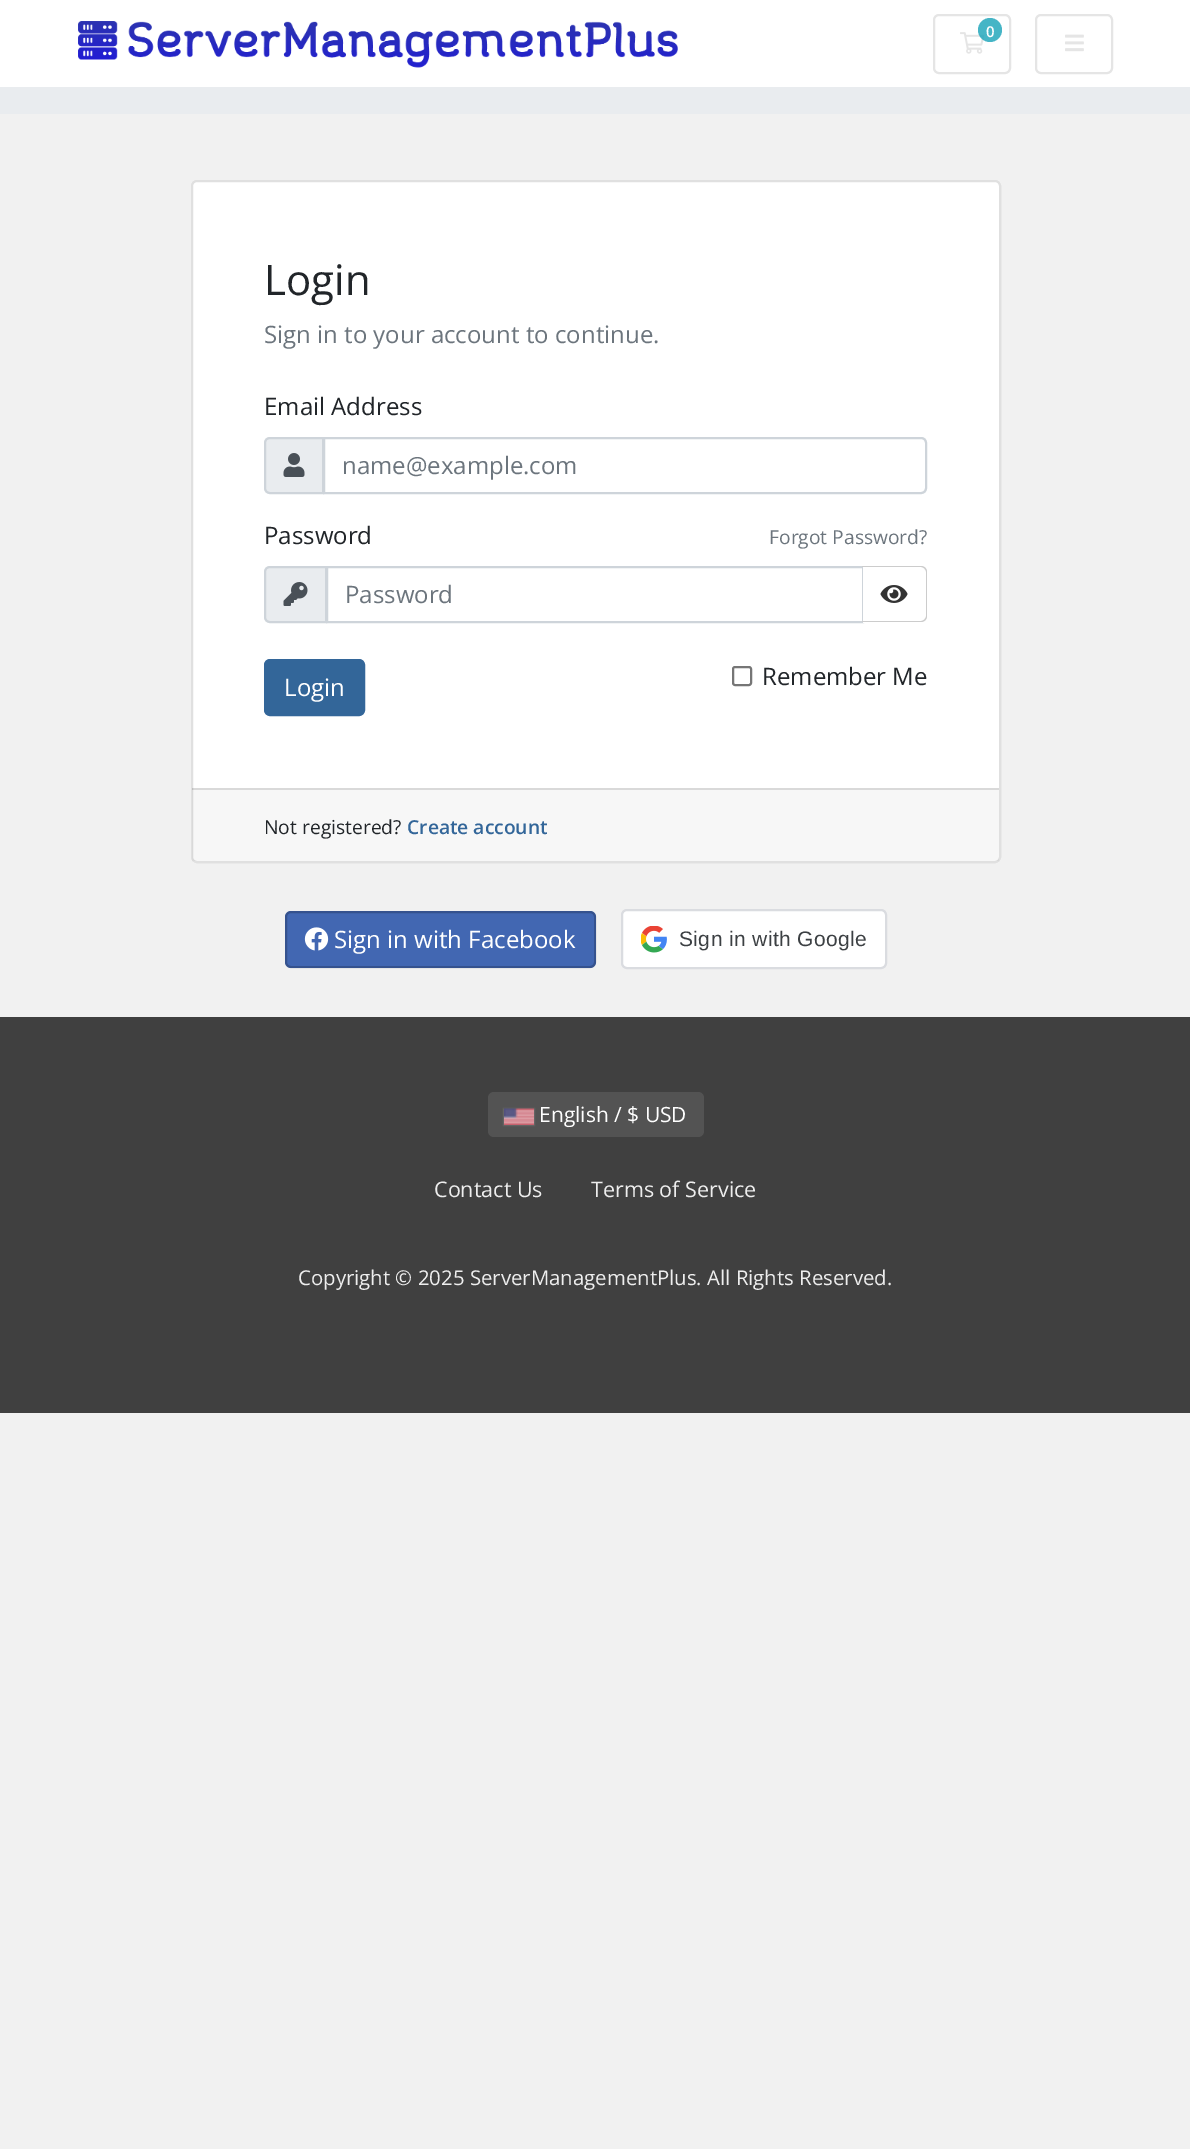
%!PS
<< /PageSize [1190 2149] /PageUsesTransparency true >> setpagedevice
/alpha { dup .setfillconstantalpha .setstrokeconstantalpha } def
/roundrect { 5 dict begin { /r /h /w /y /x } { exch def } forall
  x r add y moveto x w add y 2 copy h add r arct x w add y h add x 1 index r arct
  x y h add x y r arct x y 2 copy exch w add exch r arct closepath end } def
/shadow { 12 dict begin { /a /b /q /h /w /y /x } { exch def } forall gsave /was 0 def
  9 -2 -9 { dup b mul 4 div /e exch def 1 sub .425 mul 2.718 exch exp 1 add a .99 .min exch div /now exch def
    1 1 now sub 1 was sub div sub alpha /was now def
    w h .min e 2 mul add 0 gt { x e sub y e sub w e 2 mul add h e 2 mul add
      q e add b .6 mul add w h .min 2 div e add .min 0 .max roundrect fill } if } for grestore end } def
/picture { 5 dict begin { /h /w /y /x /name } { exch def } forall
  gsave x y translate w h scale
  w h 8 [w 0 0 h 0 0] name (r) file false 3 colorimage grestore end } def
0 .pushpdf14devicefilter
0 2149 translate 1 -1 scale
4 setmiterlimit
0.945 setgray
0 0 1190 2149 rectfill
1 setgray
0 0 1190 87 rectfill
(img1.rgb) 78 21 600 47 picture
0.898 setgray
2 setlinewidth
934 15 76 58 5 roundrect stroke
(img2.rgb) 960 32 25 22 picture
0.8 alpha
0.09 0.635 0.722 setrgbcolor
newpath 990 30 12 0 360 arc closepath fill
/OpenSans-SemiBold [15 0 0 -15 0 0] selectfont
1 alpha
1 setgray
986 37 moveto (0) show
0.898 setgray
1036 15 76 58 5 roundrect stroke
(img3.rgb) 1065 34 19 18 picture
0.914 0.925 0.937 setrgbcolor
0 87 1190 27 rectfill
1 setgray
191 180 810 683 6 roundrect fill
0.12 alpha
0 setgray
192 181 808 681 5 roundrect stroke
/OpenSans-Regular [42 0 0 -42 0 0] selectfont
1 alpha
0.129 0.145 0.161 setrgbcolor
264 295 moveto (Login) show
/OpenSans-Regular [24 0 0 -24 0 0] selectfont
0.424 0.459 0.49 setrgbcolor
264 343 moveto (Sign in to your account to continue.) show
0.129 0.145 0.161 setrgbcolor
264 415 moveto (Email Address) show
0.914 0.925 0.937 setrgbcolor
newpath 270 438 moveto 323 438 lineto 323 493 lineto 270 493 lineto 267 493 265 491 265 488 curveto 265 443 lineto 265 440 267 438 270 438 curveto closepath gsave fill grestore
0.808 0.831 0.855 setrgbcolor
stroke
(img4.rgb) 283 453 22 24 picture
newpath 324 438 moveto 921 438 lineto 924 438 926 440 926 443 curveto 926 488 lineto 926 491 924 493 921 493 curveto 324 493 lineto closepath stroke
0.424 0.459 0.49 setrgbcolor
342 474 moveto (name@example.com) show
0.129 0.145 0.161 setrgbcolor
264 544 moveto (Password) show
/OpenSans-Regular [19.25 0 0 -19.25 0 0] selectfont
0.424 0.459 0.49 setrgbcolor
769 544 moveto (Forgot Password?) show
0.914 0.925 0.937 setrgbcolor
newpath 270 567 moveto 326 567 lineto 326 622 lineto 270 622 lineto 267 622 265 620 265 617 curveto 265 572 lineto 265 569 267 567 270 567 curveto closepath gsave fill grestore
0.808 0.831 0.855 setrgbcolor
stroke
(img5.rgb) 283 582 25 24 picture
327 567 536 55 rectstroke
/OpenSans-Regular [24 0 0 -24 0 0] selectfont
0.424 0.459 0.49 setrgbcolor
345 603 moveto (Password) show
1 setgray
newpath 863 566 moveto 921 566 lineto 924.5 566 927 568.5 927 572 curveto 927 617 lineto 927 620.5 924.5 623 921 623 curveto 863 623 lineto closepath fill
0.8 setgray
newpath 862 566 moveto 921 566 lineto 924 566 927 568 927 572 curveto 927 616 lineto 927 620 924 622 921 622 curveto 862 622 lineto closepath 862 567 moveto 921 567 lineto 923 567 926 569 926 572 curveto 926 616 lineto 926 619 923 621 921 621 curveto 862 621 lineto closepath eofill
(img6.rgb) 880 585 28 18 picture
0.463 setgray
733 667 18 18 2 roundrect stroke
0.129 0.145 0.161 setrgbcolor
762 685 moveto (Remember Me) show
0.2 0.4 0.6 setrgbcolor
265 660 99 55 5 roundrect gsave fill grestore
stroke
1 setgray
284 696 moveto (Login) show
0.03 alpha
0 setgray
192 788 807 73 rectfill
0.12 alpha
192 788 807 2 rectfill
/OpenSans-Regular [19.25 0 0 -19.25 0 0] selectfont
1 alpha
0.129 0.145 0.161 setrgbcolor
264 834 moveto (Not registered?) show
/OpenSans-SemiBold [19.25 0 0 -19.25 0 0] selectfont
0.2 0.4 0.6 setrgbcolor
407 834 moveto (Create account) show
0.259 0.404 0.698 setrgbcolor
285 911 311 57 6 roundrect fill
0.2 alpha
0 setgray
286 912 309 55 5 roundrect stroke
1 alpha
(img7.rgb) 304 927 25 24 picture
/OpenSans-Regular [24 0 0 -24 0 0] selectfont
1 setgray
334 948 moveto (Sign in with Facebook) show
622 910 264 58 5 roundrect gsave fill grestore
0.855 0.863 0.878 setrgbcolor
stroke
(img8.rgb) 641 926 26 27 picture
/LiberationSans-Regular [21 0 0 -21 0 0] selectfont
0.235 0.251 0.263 setrgbcolor
679 946 moveto 0.4 0 (Sign in with Google) ashow
0.251 setgray
0 1017 1190 396 rectfill
0.325 setgray
488 1092 216 45 6 roundrect fill
0.533 setgray
504 1109 30 16 0 1 1 shadow
(img9.rgb) 504 1108 30 17 picture
/OpenSans-Regular [21 0 0 -21 0 0] selectfont
1 setgray
539 1122 moveto (English / $ USD) show
/OpenSans-Regular [21.5 0 0 -21.5 0 0] selectfont
0.933 setgray
434 1197 moveto (Contact Us) show
591 1197 moveto (Terms of Service) show
/OpenSans-Regular [20.4 0 0 -20.4 0 0] selectfont
298 1285 moveto (Copyright © 2025 ServerManagementPlus. All Rights Reserved.) show
.poppdf14devicefilter showpage
